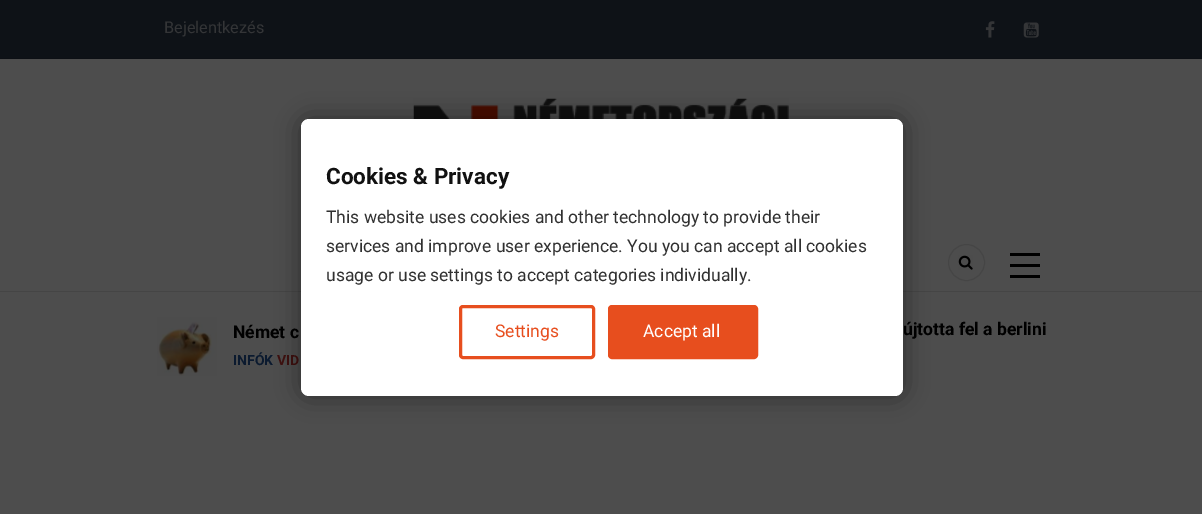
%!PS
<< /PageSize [1202 514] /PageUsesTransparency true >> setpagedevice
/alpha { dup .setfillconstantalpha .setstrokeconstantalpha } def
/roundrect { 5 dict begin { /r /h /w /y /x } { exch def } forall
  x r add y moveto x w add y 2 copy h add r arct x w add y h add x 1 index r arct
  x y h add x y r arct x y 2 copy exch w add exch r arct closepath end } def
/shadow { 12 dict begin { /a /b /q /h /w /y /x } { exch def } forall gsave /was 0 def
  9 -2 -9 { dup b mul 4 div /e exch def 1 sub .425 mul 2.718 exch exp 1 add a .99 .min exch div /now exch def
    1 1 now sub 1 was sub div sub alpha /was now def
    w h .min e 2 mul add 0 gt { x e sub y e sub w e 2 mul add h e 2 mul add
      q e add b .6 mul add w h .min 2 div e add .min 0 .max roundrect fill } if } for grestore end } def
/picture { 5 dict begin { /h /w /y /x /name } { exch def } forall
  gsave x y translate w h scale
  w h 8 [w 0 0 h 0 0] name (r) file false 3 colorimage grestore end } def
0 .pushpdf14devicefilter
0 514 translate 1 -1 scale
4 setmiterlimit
0.302 setgray
0 0 1202 514 rectfill
0.055 0.071 0.09 setrgbcolor
0 0 1202 58 rectfill
0.051 0.063 0.082 setrgbcolor
0 58 1202 1 rectfill
/Roboto-Regular [16.25 0 0 -16.25 0 0] selectfont
0.204 0.208 0.216 setrgbcolor
164 33 moveto (Bejelentkezés) show
(img1.rgb) 985 21 10 17 picture
(img2.rgb) 1023 22 16 16 picture
(img3.rgb) 413 98 376 21 picture
0.271 setgray
0 291 1202 1 rectfill
newpath 966.5 262.5 18 0 360 arc closepath stroke
(img4.rgb) 958 255 15 15 picture
0 setgray
1010 253 30 3 rectfill
1010 264 30 3 rectfill
1010 275 30 3 rectfill
(img5.rgb) 157 317 60 59 picture
/Roboto-Bold [17.5 0 0 -17.5 0 0] selectfont
233 338 moveto (Német c) show
/Roboto-Bold [14 0 0 -14 0 0] selectfont
0.043 0.102 0.184 setrgbcolor
233 365 moveto (INFÓK) show
0.243 0.063 0.059 setrgbcolor
277 365 moveto (VID) show
/Roboto-Bold [17.5 0 0 -17.5 0 0] selectfont
0 setgray
903 335 moveto (újtotta fel a berlini) show
301 119 602 277 8 12.5 0.4 shadow
1 setgray
301 119 602 277 8 roundrect fill
/Roboto-Bold [22.5 0 0 -22.5 0 0] selectfont
0.067 setgray
326 184 moveto (Cookies & Privacy) show
/Roboto-Regular [17.5 0 0 -17.5 0 0] selectfont
0.188 setgray
326 223 moveto (This website uses cookies and other technology to provide their) show
326 252 moveto (services and improve user experience. You you can accept all cookies) show
326 281 moveto (usage or use settings to accept categories individually.) show
0.906 0.306 0.118 setrgbcolor
3 setlinewidth
460.5 306.5 133 51 2.5 roundrect stroke
495 337 moveto (Settings) show
609.5 306.5 147 51 2.5 roundrect gsave fill grestore
stroke
1 setgray
643 337 moveto (Accept all) show
.poppdf14devicefilter showpage
